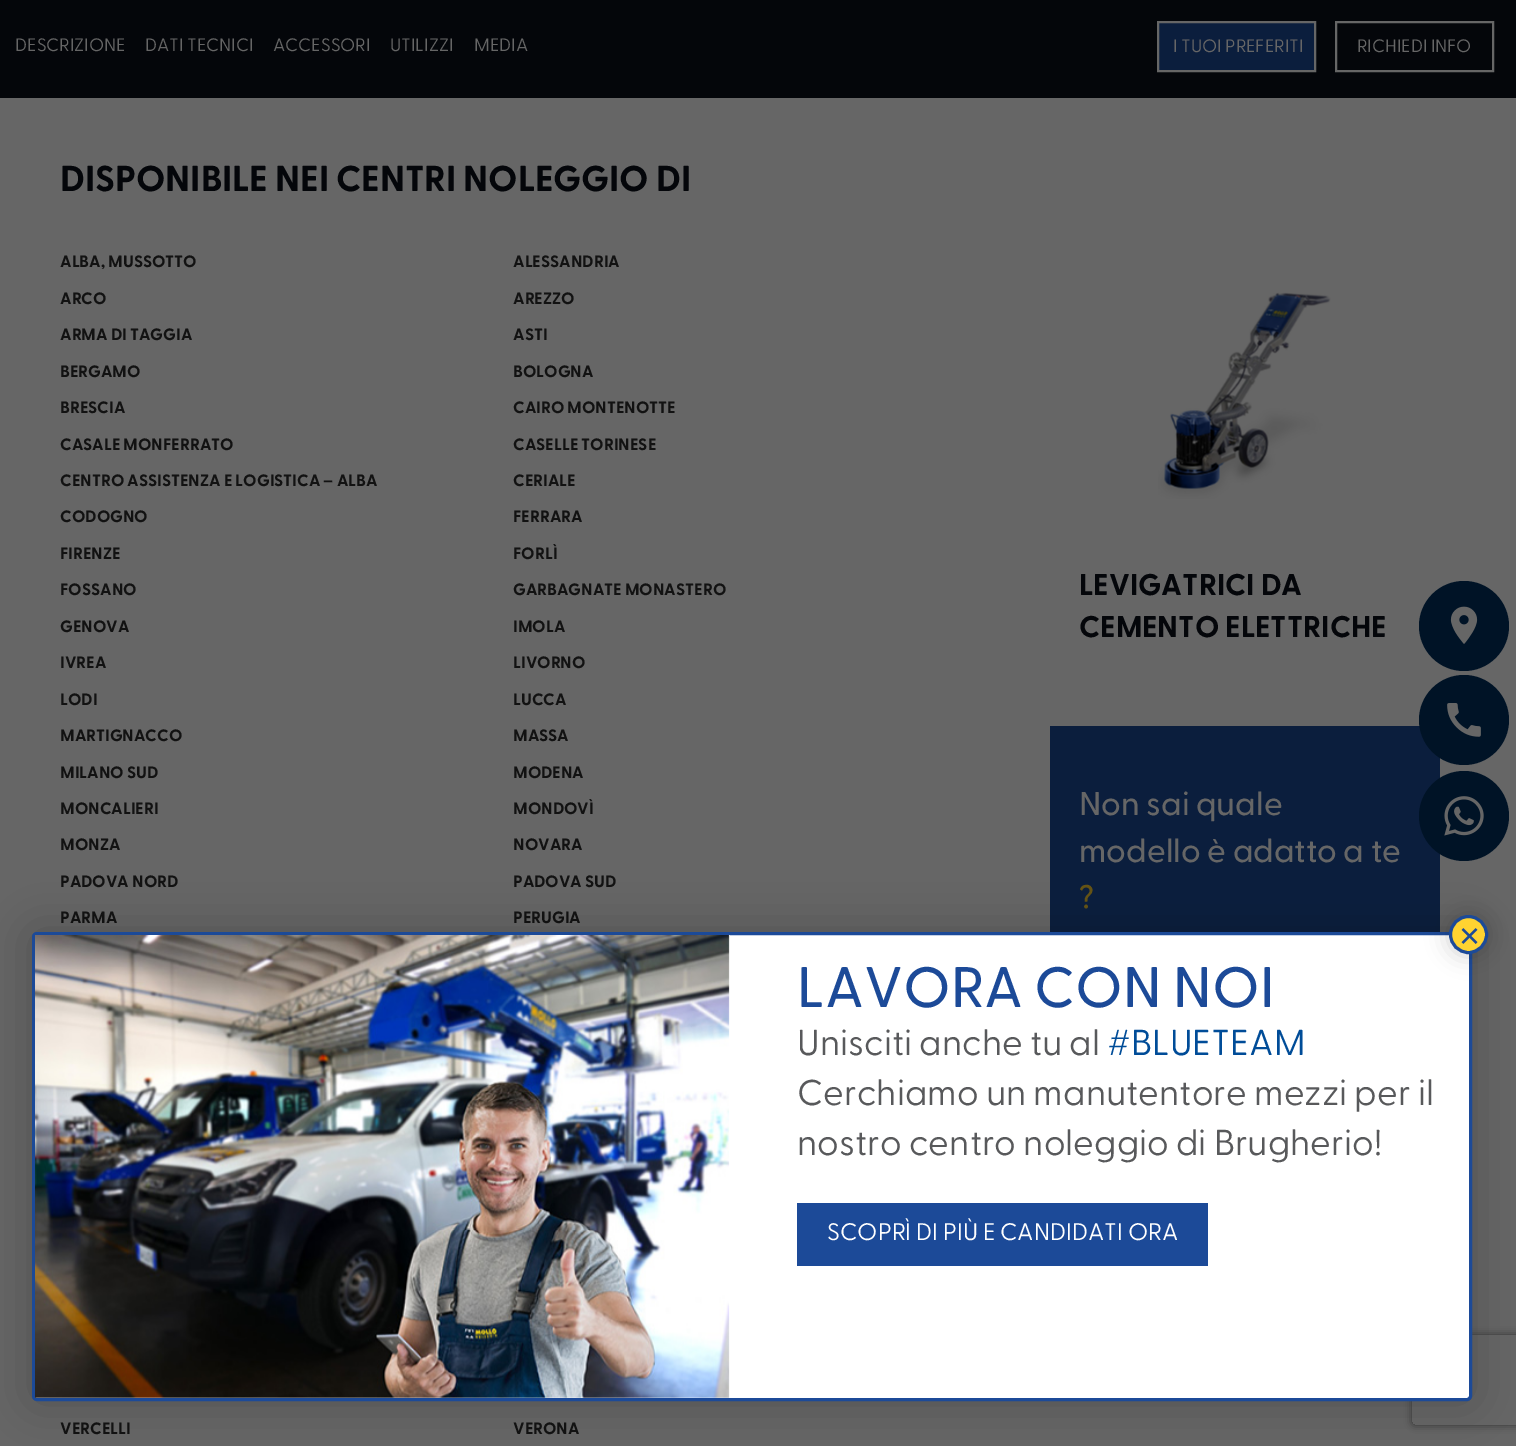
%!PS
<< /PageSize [1516 1446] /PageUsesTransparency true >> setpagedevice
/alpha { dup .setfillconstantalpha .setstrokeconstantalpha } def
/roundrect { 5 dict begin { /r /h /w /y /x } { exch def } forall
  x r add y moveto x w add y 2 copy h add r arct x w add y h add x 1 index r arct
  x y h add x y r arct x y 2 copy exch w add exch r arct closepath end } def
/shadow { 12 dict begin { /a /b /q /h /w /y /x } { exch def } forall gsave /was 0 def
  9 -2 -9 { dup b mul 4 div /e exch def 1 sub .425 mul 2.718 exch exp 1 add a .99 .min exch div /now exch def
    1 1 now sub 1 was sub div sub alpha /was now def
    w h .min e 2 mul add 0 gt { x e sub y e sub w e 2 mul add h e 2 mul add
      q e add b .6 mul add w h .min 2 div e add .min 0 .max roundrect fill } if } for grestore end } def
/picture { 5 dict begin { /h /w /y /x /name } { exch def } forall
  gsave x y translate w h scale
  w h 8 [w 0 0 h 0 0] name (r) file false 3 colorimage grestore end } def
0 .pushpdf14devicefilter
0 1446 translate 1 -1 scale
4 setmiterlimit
0.4 setgray
0 0 1516 1446 rectfill
0.016 0.024 0.039 setrgbcolor
0 0 1516 98 rectfill
/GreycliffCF-Regular [18 0 0 -18 0 0] selectfont
0.4 setgray
15 51 moveto (DESCRIZIONE) show
145 51 moveto (DATI TECNICI) show
273 51 moveto (ACCESSORI) show
390 51 moveto (UTILIZZI) show
474 51 moveto (MEDIA) show
0.043 0.118 0.239 setrgbcolor
newpath 1158 22 moveto 1315 22 lineto 1315 71 lineto 1158 71 lineto closepath gsave fill grestore
0.4 setgray
2 setlinewidth
stroke
1173 52 moveto (I TUOI PREFERITI) show
1336 22 157 49 rectstroke
1357 52 moveto (RICHIEDI INFO) show
/GreycliffCF-Bold [36 0 0 -36 0 0] selectfont
0.016 0.024 0.039 setrgbcolor
60 191 moveto (DISPONIBILE NEI CENTRI NOLEGGIO DI) show
/GreycliffCF-Bold [16.5 0 0 -16.5 0 0] selectfont
0.071 setgray
60 267 moveto (ALBA, MUSSOTTO) show
513 267 moveto (ALESSANDRIA) show
60 304 moveto (ARCO) show
513 304 moveto (AREZZO) show
60 340 moveto (ARMA DI TAGGIA) show
513 340 moveto (ASTI) show
60 377 moveto (BERGAMO) show
513 377 moveto (BOLOGNA) show
60 413 moveto (BRESCIA) show
513 413 moveto (CAIRO MONTENOTTE) show
60 450 moveto (CASALE MONFERRATO) show
513 450 moveto (CASELLE TORINESE) show
60 486 moveto (CENTRO ASSISTENZA E LOGISTICA – ALBA) show
513 486 moveto (CERIALE) show
60 522 moveto (CODOGNO) show
513 522 moveto (FERRARA) show
60 559 moveto (FIRENZE) show
513 559 moveto (FORLÌ) show
60 595 moveto (FOSSANO) show
513 595 moveto (GARBAGNATE MONASTERO) show
60 632 moveto (GENOVA) show
513 632 moveto (IMOLA) show
60 668 moveto (IVREA) show
513 668 moveto (LIVORNO) show
60 705 moveto (LODI) show
513 705 moveto (LUCCA) show
60 741 moveto (MARTIGNACCO) show
513 741 moveto (MASSA) show
60 778 moveto (MILANO SUD) show
513 778 moveto (MODENA) show
60 814 moveto (MONCALIERI) show
513 814 moveto (MONDOVÌ) show
60 850 moveto (MONZA) show
513 850 moveto (NOVARA) show
60 887 moveto (PADOVA NORD) show
513 887 moveto (PADOVA SUD) show
60 923 moveto (PARMA) show
513 923 moveto (PERUGIA) show
60 1434 moveto (VERCELLI) show
513 1434 moveto (VERONA) show
(img1.rgb) 1158 292 173 207 picture
/GreycliffCF-Bold [30 0 0 -30 0 0] selectfont
0.016 0.024 0.039 setrgbcolor
1079 595 moveto (LEVIGATRICI DA) show
1079 637 moveto (CEMENTO ELETTRICHE) show
0.043 0.118 0.239 setrgbcolor
1050 726 390 206 rectfill
/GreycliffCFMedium-Medium [33 0 0 -33 0 0] selectfont
0.4 setgray
1079 815 moveto (Non sai quale) show
1079 862 moveto (modello è adatto a te) show
0.4 0.329 0.078 setrgbcolor
1079 908 moveto (?) show
0 0.075 0.149 setrgbcolor
newpath 1464 626 45 0 360 arc closepath fill
(img2.rgb) 1450 606 28 38 picture
newpath 1464 720 45 0 360 arc closepath fill
(img3.rgb) 1447 703 34 34 picture
newpath 1464 816 45 0 360 arc closepath fill
(img4.rgb) 1444 796 40 40 picture
0.008 setgray
32 932 1440 469 5 22.5 0.2 shadow
gsave
newpath 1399 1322 moveto 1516 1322 lineto 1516 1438 lineto 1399 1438 lineto closepath 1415 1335 moveto 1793 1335 lineto 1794.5 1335 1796 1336.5 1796 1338 curveto 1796 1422 lineto 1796 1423.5 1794.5 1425 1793 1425 curveto 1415 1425 lineto 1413.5 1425 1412 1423.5 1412 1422 curveto 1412 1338 lineto 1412 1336.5 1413.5 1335 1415 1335 curveto closepath eoclip newpath
0.2 setgray
1412 1335 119 90 3 4 1 shadow
grestore
1 setgray
33.5 933.5 1437 466 3.5 roundrect gsave fill grestore
0.11 0.29 0.596 setrgbcolor
3 setlinewidth
stroke
0.008 setgray
1448 914 42 42 21 11 0.17 shadow
1 0.827 0.192 setrgbcolor
newpath 1468.5 934.5 18 0 360 arc closepath gsave fill grestore
0.11 0.29 0.596 setrgbcolor
stroke
/LiberationSans-Regular [36 0 0 -36 0 0] selectfont
1459 948 moveto (×) show
(img5.rgb) 35 935 695 463 picture
/GreycliffCFMedium-Medium [57 0 0 -57 0 0] selectfont
797 1007 moveto (LAVORA CON NOI) show
/GreycliffCF-Regular [36 0 0 -36 0 0] selectfont
0.345 0.349 0.357 setrgbcolor
797 1055 moveto (Unisciti anche tu al) show
0 0.298 0.596 setrgbcolor
1107 1055 moveto (#BLUETEAM) show
0.345 0.349 0.357 setrgbcolor
797 1105 moveto (Cerchiamo un manutentore mezzi per il) show
797 1155 moveto (nostro centro noleggio di Brugherio!) show
0.11 0.29 0.596 setrgbcolor
797 1203 411 63 rectfill
/GreycliffCF-Regular [24 0 0 -24 0 0] selectfont
1 setgray
827 1240 moveto (SCOPRÌ DI PIÙ E CANDIDATI ORA) show
.poppdf14devicefilter showpage
